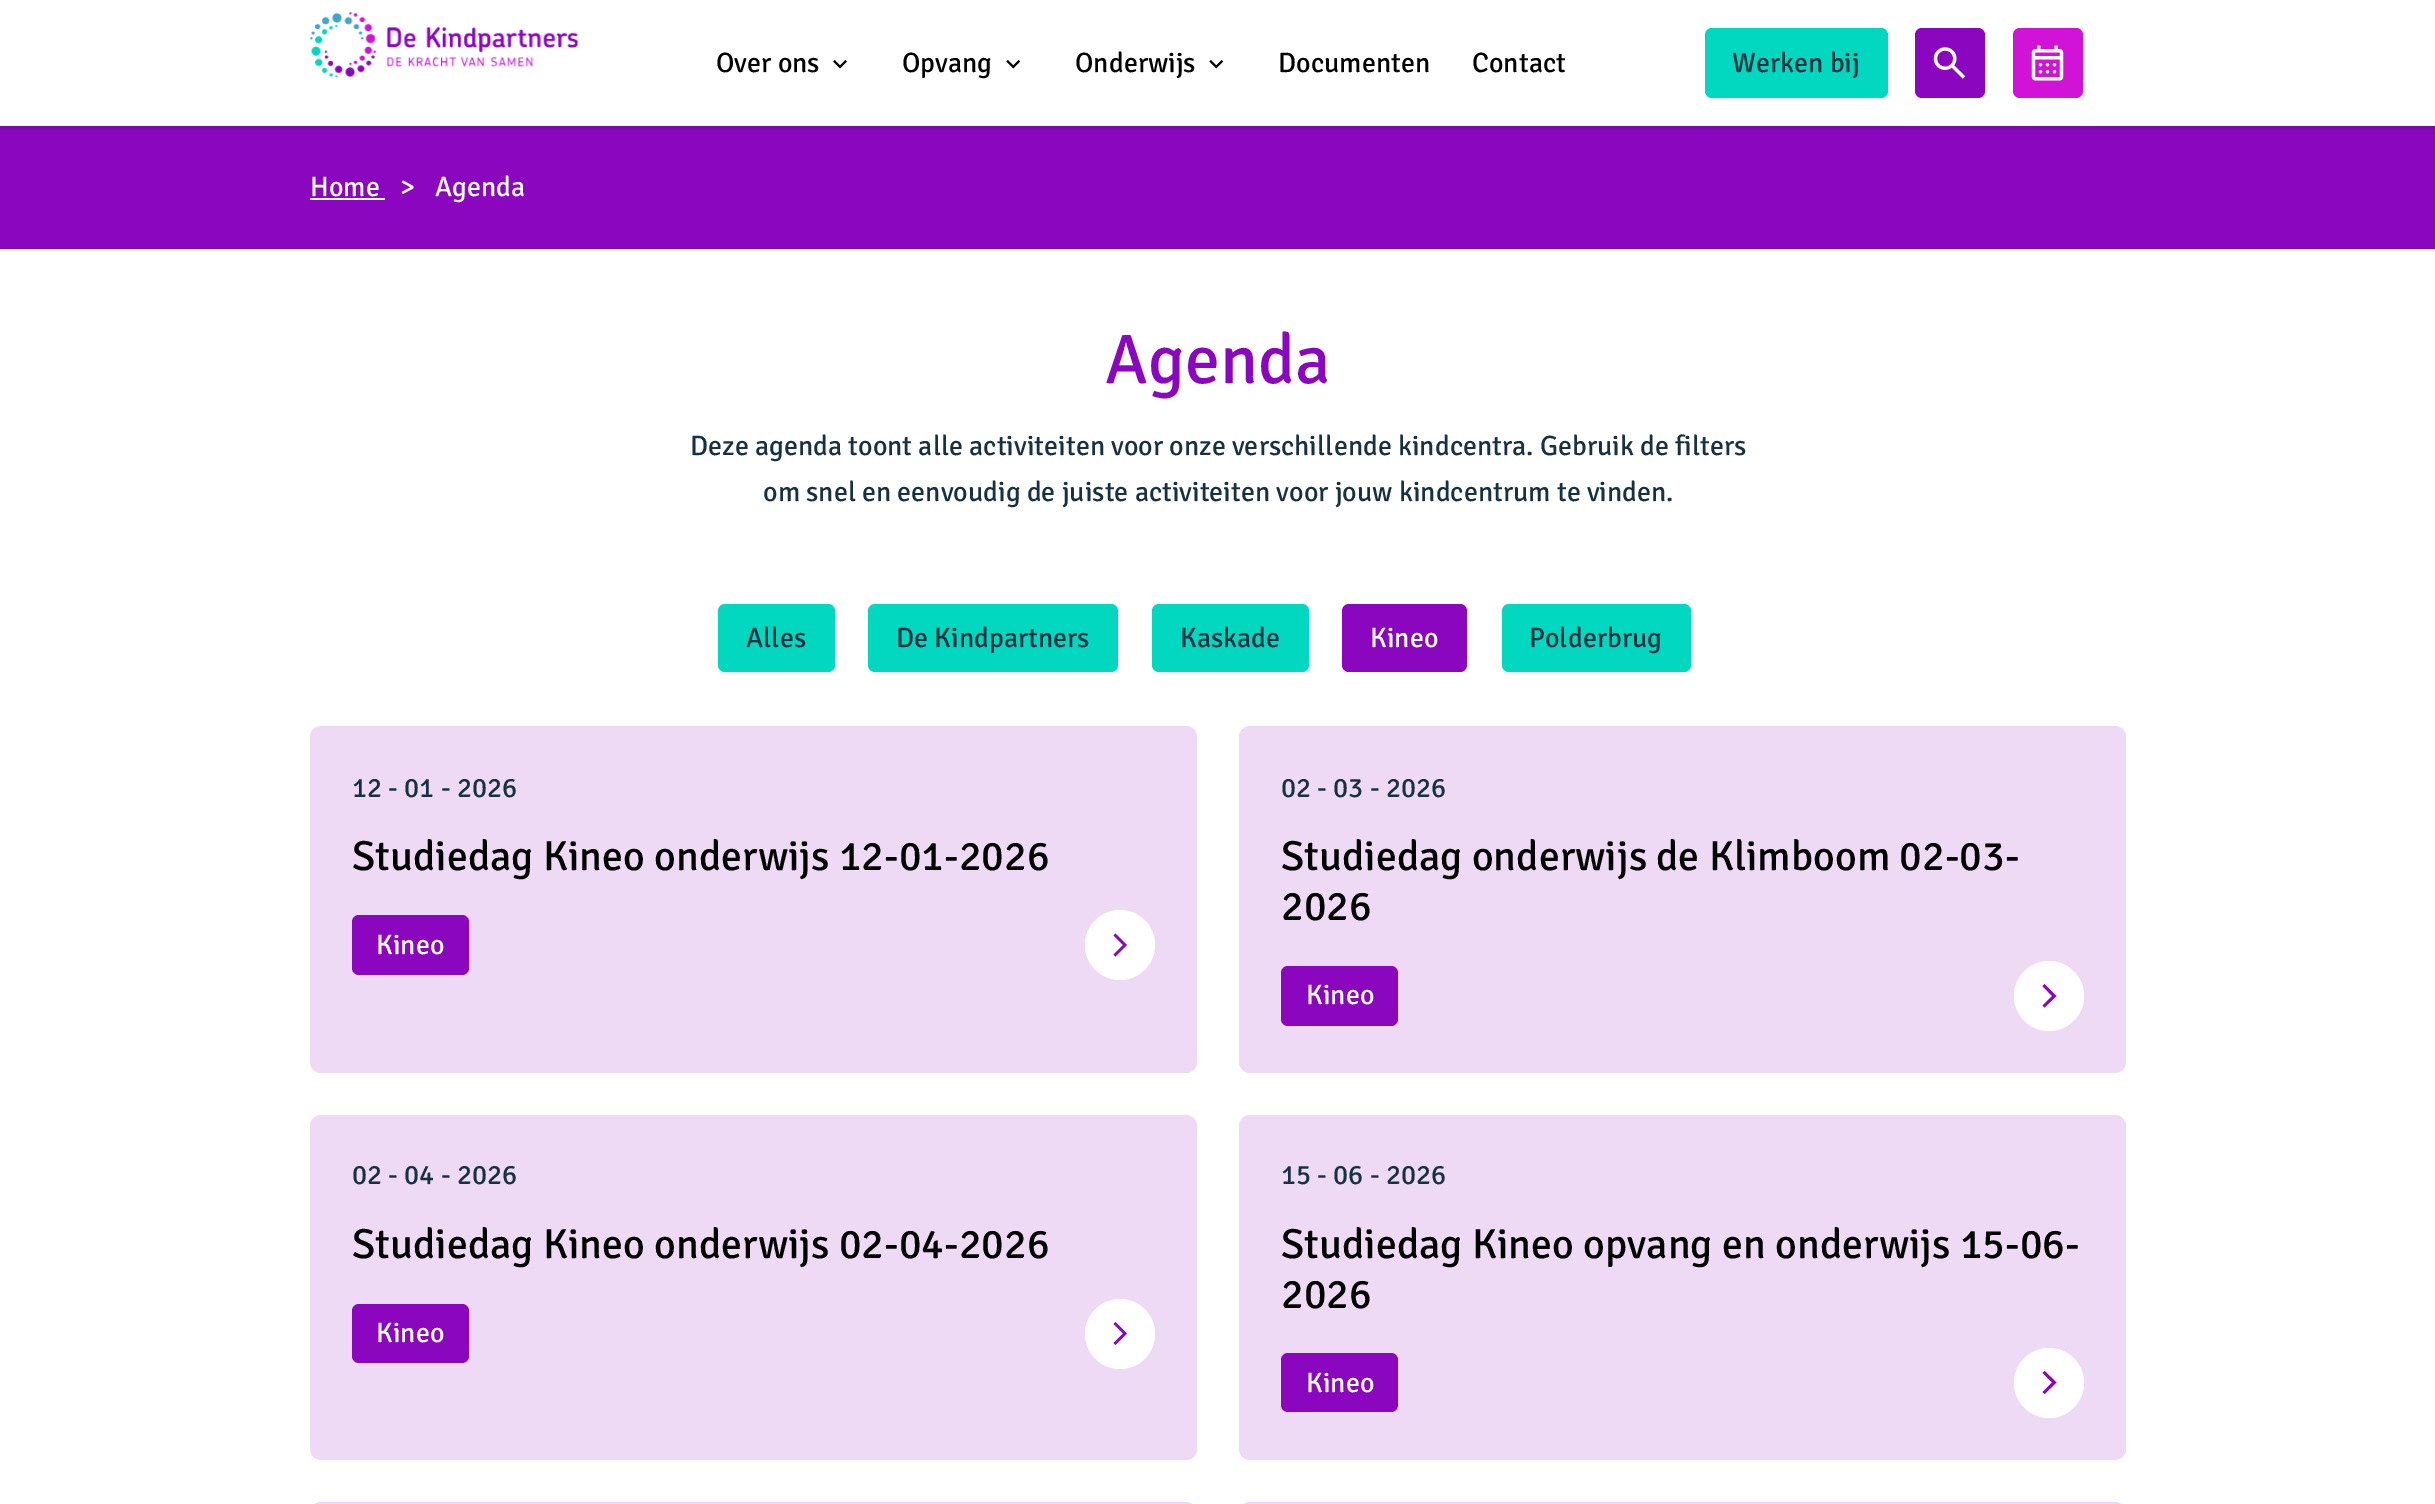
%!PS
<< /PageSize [2435 1504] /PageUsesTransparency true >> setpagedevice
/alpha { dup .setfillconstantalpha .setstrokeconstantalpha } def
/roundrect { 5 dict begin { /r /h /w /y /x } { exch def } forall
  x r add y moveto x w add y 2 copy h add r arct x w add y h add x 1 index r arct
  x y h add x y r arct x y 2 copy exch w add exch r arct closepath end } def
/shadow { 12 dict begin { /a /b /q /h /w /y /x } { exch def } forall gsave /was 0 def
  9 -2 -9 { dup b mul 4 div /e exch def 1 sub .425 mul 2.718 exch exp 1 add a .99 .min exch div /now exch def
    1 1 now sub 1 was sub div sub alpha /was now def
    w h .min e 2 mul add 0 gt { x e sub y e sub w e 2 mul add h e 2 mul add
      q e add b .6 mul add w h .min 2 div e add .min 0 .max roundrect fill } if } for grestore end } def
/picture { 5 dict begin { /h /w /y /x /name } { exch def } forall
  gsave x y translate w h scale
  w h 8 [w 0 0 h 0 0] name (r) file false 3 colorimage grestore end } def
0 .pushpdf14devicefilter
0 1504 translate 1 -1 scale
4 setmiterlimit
1 setgray
0 0 2435 1504 rectfill
0.541 0.027 0.749 setrgbcolor
0 126 2435 123 rectfill
gsave
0 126 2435 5 rectclip
0 setgray
0 2 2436 126 0 2.5 0.16 shadow
grestore
(img1.rgb) 309 12 269 65 picture
/Signika-Regular [28 0 0 -28 0 0] selectfont
0 setgray
716 72 moveto (Over ons) show
(img2.rgb) 833 60 14 9 picture
902 72 moveto (Opvang) show
(img3.rgb) 1006 60 15 9 picture
1075 72 moveto (Onderwijs) show
(img3.rgb) 1209 60 15 9 picture
1278 72 moveto (Documenten) show
1472 72 moveto (Contact) show
0.004 0.847 0.749 setrgbcolor
1705 28 183 70 7 roundrect fill
0.09 0.192 0.259 setrgbcolor
1732 72 moveto (Werken bij) show
0.541 0.027 0.749 setrgbcolor
1915 28 70 70 7 roundrect fill
(img4.rgb) 1933 47 33 32 picture
0.82 0.071 0.843 setrgbcolor
2013 28 70 70 7 roundrect fill
(img5.rgb) 2031 45 33 36 picture
1 setgray
310 196 moveto (Home) show
310 198 75 2 rectfill
400 196 moveto (>) show
435 196 moveto (Agenda) show
/Signika-Regular [70 0 0 -70 0 0] selectfont
0.541 0.027 0.749 setrgbcolor
1105 383 moveto (Agenda) show
/Signika-Regular [28 0 0 -28 0 0] selectfont
0.09 0.192 0.259 setrgbcolor
690 455 moveto (Deze agenda toont alle activiteiten voor onze verschillende kindcentra. Gebruik de filters) show
763 501 moveto (om snel en eenvoudig de juiste activiteiten voor jouw kindcentrum te vinden.) show
0.004 0.847 0.749 setrgbcolor
718 604 117 68 7 roundrect fill
0.09 0.192 0.259 setrgbcolor
746 647 moveto (Alles) show
0.004 0.847 0.749 setrgbcolor
868 604 250 68 7 roundrect fill
0.09 0.192 0.259 setrgbcolor
896 647 moveto (De Kindpartners) show
0.004 0.847 0.749 setrgbcolor
1152 604 157 68 7 roundrect fill
0.09 0.192 0.259 setrgbcolor
1180 647 moveto (Kaskade) show
0.541 0.027 0.749 setrgbcolor
1342 604 125 68 7 roundrect fill
1 setgray
1370 647 moveto (Kineo) show
0.004 0.847 0.749 setrgbcolor
1502 604 189 68 7 roundrect fill
0.09 0.192 0.259 setrgbcolor
1529 647 moveto (Polderbrug) show
0.933 0.855 0.961 setrgbcolor
310 726 887 347 11 roundrect fill
0.09 0.192 0.259 setrgbcolor
352 797 moveto (12 - 01 - 2026) show
/Signika-Regular [42 0 0 -42 0 0] selectfont
0 setgray
352 870 moveto (Studiedag Kineo onderwijs 12-01-2026) show
0.541 0.027 0.749 setrgbcolor
352 915 117 60 7 roundrect fill
/Signika-Regular [28 0 0 -28 0 0] selectfont
1 setgray
376 954 moveto (Kineo) show
newpath 1120 945 35 0 360 arc closepath fill
0.541 0.027 0.749 setrgbcolor
newpath 1115.5 956.5 moveto 1113.5 954.5 lineto 1123 945 lineto 1113.5 935.5 lineto 1115.5 933.5 lineto 1127 945 lineto closepath fill
0.933 0.855 0.961 setrgbcolor
1239 726 887 347 11 roundrect fill
0.09 0.192 0.259 setrgbcolor
1281 797 moveto (02 - 03 - 2026) show
/Signika-Regular [42 0 0 -42 0 0] selectfont
0 setgray
1281 870 moveto (Studiedag onderwijs de Klimboom 02-03-) show
1281 920 moveto (2026) show
0.541 0.027 0.749 setrgbcolor
1281 966 117 60 7 roundrect fill
/Signika-Regular [28 0 0 -28 0 0] selectfont
1 setgray
1306 1004 moveto (Kineo) show
newpath 2049 996 35 0 360 arc closepath fill
0.541 0.027 0.749 setrgbcolor
newpath 2044.5 1007.5 moveto 2042.5 1005.5 lineto 2052 996 lineto 2042.5 986 lineto 2044.5 984 lineto 2056.5 996 lineto closepath fill
0.933 0.855 0.961 setrgbcolor
310 1115 887 345 11 roundrect fill
0.09 0.192 0.259 setrgbcolor
352 1184 moveto (02 - 04 - 2026) show
/Signika-Regular [42 0 0 -42 0 0] selectfont
0 setgray
352 1258 moveto (Studiedag Kineo onderwijs 02-04-2026) show
0.541 0.027 0.749 setrgbcolor
352 1304 117 59 7 roundrect fill
/Signika-Regular [28 0 0 -28 0 0] selectfont
1 setgray
376 1342 moveto (Kineo) show
newpath 1120 1334 35 0 360 arc closepath fill
0.541 0.027 0.749 setrgbcolor
newpath 1115.5 1345 moveto 1113.5 1343 lineto 1123 1333.5 lineto 1113.5 1324 lineto 1115.5 1322 lineto 1127 1333.5 lineto closepath fill
0.933 0.855 0.961 setrgbcolor
1239 1115 887 345 11 roundrect fill
0.09 0.192 0.259 setrgbcolor
1281 1184 moveto (15 - 06 - 2026) show
/Signika-Regular [42 0 0 -42 0 0] selectfont
0 setgray
1281 1258 moveto (Studiedag Kineo opvang en onderwijs 15-06-) show
1281 1308 moveto (2026) show
0.541 0.027 0.749 setrgbcolor
1281 1353 117 59 7 roundrect fill
/Signika-Regular [28 0 0 -28 0 0] selectfont
1 setgray
1306 1392 moveto (Kineo) show
newpath 2049 1383 35 0 360 arc closepath fill
0.541 0.027 0.749 setrgbcolor
newpath 2044.5 1394 moveto 2042.5 1392 lineto 2052 1382.5 lineto 2042.5 1373 lineto 2044.5 1371 lineto 2056.5 1382.5 lineto closepath fill
0.933 0.855 0.961 setrgbcolor
310 1502 887 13 11 roundrect fill
1239 1502 887 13 11 roundrect fill
.poppdf14devicefilter showpage
